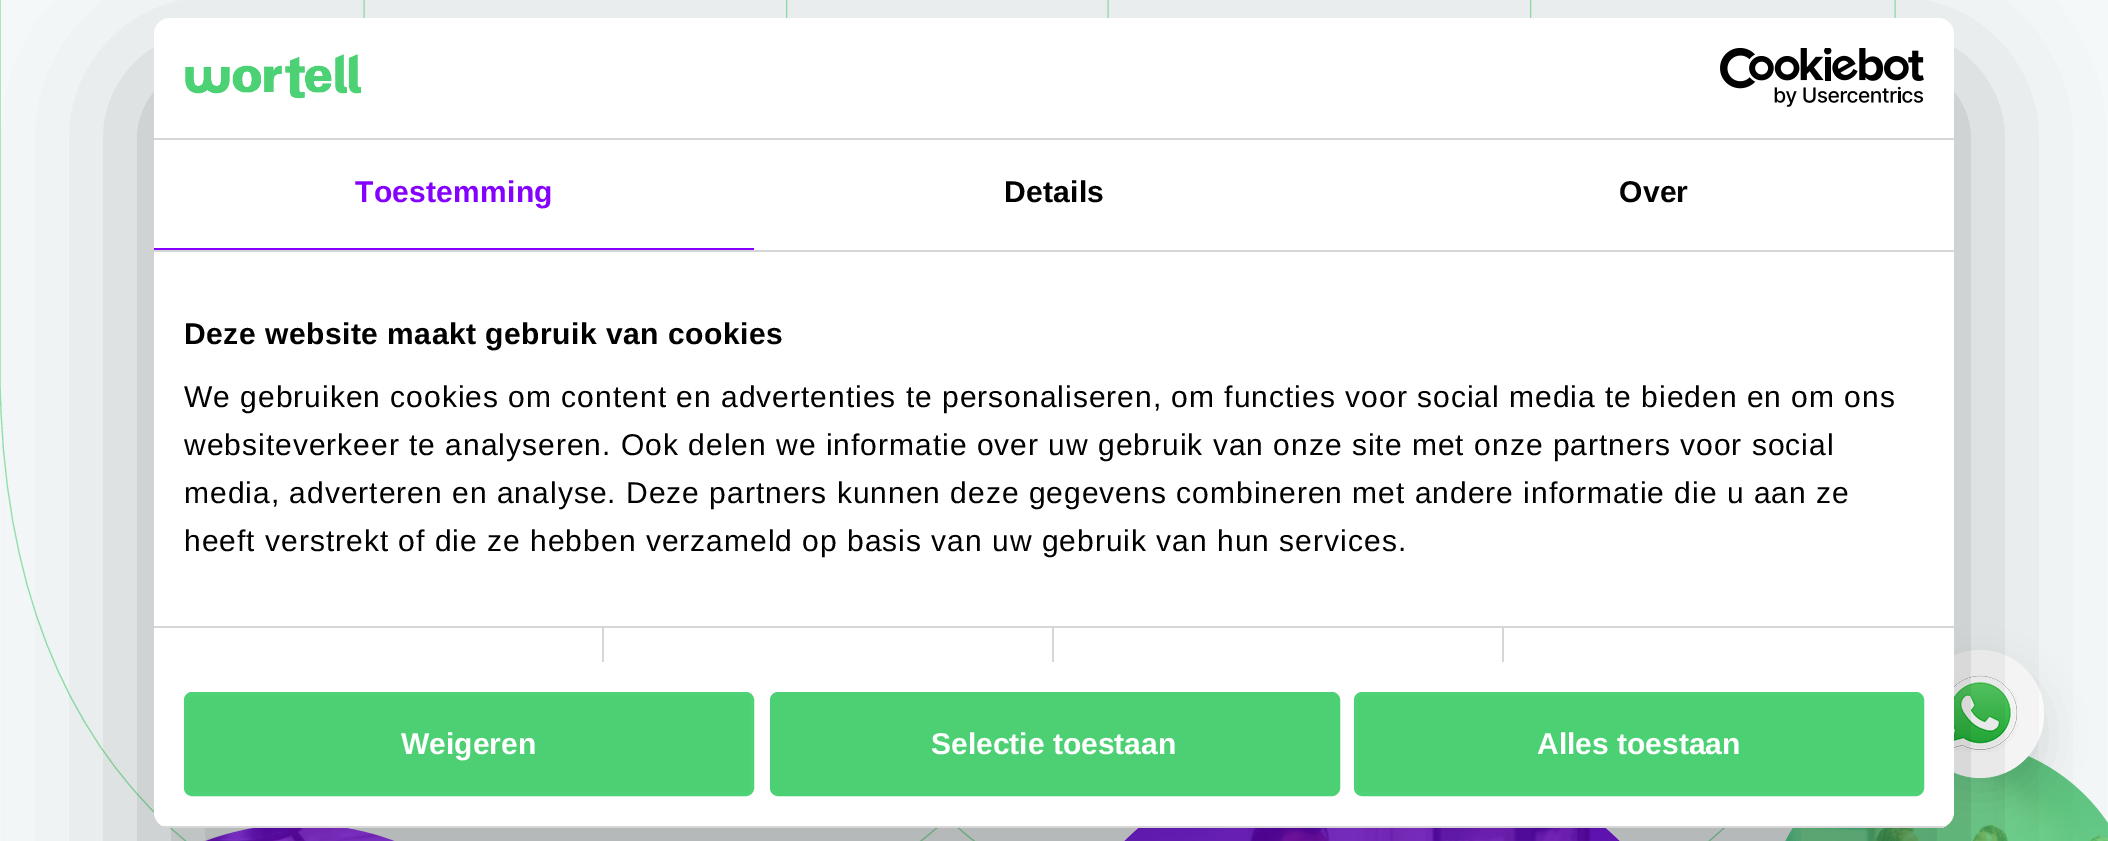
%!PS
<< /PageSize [2108 841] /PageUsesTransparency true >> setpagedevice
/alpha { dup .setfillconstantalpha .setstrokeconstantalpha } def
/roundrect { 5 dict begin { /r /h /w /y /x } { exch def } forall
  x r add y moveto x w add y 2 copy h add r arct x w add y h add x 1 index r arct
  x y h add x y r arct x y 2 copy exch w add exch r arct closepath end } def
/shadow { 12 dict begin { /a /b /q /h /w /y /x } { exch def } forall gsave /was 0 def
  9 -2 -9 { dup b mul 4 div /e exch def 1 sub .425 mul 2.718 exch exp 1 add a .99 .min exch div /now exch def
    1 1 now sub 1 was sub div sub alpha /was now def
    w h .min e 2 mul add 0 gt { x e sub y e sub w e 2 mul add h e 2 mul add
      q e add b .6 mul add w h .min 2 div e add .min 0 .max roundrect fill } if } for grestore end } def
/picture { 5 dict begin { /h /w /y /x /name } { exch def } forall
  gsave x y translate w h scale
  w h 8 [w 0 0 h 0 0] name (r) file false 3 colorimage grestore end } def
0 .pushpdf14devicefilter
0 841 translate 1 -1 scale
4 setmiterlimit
0.961 0.973 0.973 setrgbcolor
0 0 2108 841 rectfill
0.565 0.882 0.663 setrgbcolor
1.1 setlinewidth
newpath 787 -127.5 moveto 1108 -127.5 lineto 1108 353.5 lineto 1113 546.5 1190 656 1341 656 curveto 1492 656 1525.5 546.5 1530.5 353.5 curveto 1530.5 -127.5 lineto 1895 -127.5 lineto 1895 374.5 lineto 1892 796 1633 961.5 1341 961.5 curveto 1196 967.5 1055 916 947.5 818.5 curveto 840 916 699 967.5 554 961.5 curveto 261.5 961.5 3 796 0 374.5 curveto 0 -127.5 lineto 364 -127.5 lineto 364 353.5 lineto 369 546.5 403 656 554 656 curveto 704.5 656 782 546.5 786.5 353.5 curveto 786.5 -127.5 lineto stroke
0.298 0.824 0.459 setrgbcolor
1764 740 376 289 188 roundrect fill
(img6.rgb) 1785 756 323 85 picture
0 setgray
1916 670 128 128 64 20 0.1 shadow
1 setgray
newpath 1980 714 64 0 360 arc closepath fill
(img3.rgb) 1954 675 64 77 picture
0.518 0 1 setrgbcolor
30 824 540 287 270 roundrect fill
(img4.rgb) 203 828 193 13 picture
1018 740 708 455 354 roundrect fill
(img5.rgb) 1125 828 494 13 picture
0 setgray
154 82 1800 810 16 68 0.3 shadow
1 setgray
154 18 1800 810 16 roundrect fill
0.839 setgray
154 138 1800 2 rectfill
(img1.rgb) 185 54 176 45 picture
(img2.rgb) 1720 48 204 59 picture
154 250 1800 2 rectfill
0.518 0 1 setrgbcolor
154 248 600 2 rectfill
/LiberationSans-Bold [30 0 0 -30 0 0] selectfont
355 202 moveto 0.25 0 (Toestemming) ashow
0 setgray
1004 202 moveto 0.25 0 (Details) ashow
1619 202 moveto 0.25 0 (Over) ashow
0.839 setgray
154 626 1800 2 rectfill
0 setgray
184 344 moveto 0.5 0 (Deze website maakt gebruik van cookies) ashow
/LiberationSans-Regular [30 0 0 -30 0 0] selectfont
184 407 moveto 1 0 (We gebruiken cookies om content en advertenties te personaliseren, om functies voor social media te bieden en om ons) ashow
184 455 moveto 1 0 (websiteverkeer te analyseren. Ook delen we informatie over uw gebruik van onze site met onze partners voor social) ashow
184 503 moveto 1 0 (media, adverteren en analyse. Deze partners kunnen deze gegevens combineren met andere informatie die u aan ze) ashow
184 551 moveto 1 0 (heeft verstrekt of die ze hebben verzameld op basis van uw gebruik van hun services.) ashow
0.839 setgray
602 628 2 34 rectfill
1052 628 2 34 rectfill
1502 628 2 34 rectfill
gsave
154 18 1800 810 16 roundrect clip newpath
154 826 1800 2 rectfill
grestore
0.302 0.816 0.455 setrgbcolor
186 694 566 100 6 roundrect gsave fill grestore
0.302 0.824 0.459 setrgbcolor
4 setlinewidth
stroke
/LiberationSans-Bold [30 0 0 -30 0 0] selectfont
1 setgray
401 754 moveto (Weigeren) show
0.302 0.816 0.455 setrgbcolor
772 694 566 100 6 roundrect gsave fill grestore
0.298 0.816 0.455 setrgbcolor
stroke
1 setgray
931 754 moveto (Selectie toestaan) show
0.298 0.816 0.455 setrgbcolor
1356 694 566 100 6 roundrect gsave fill grestore
0.302 0.824 0.459 setrgbcolor
stroke
1 setgray
1537 754 moveto (Alles toestaan) show
.poppdf14devicefilter showpage
